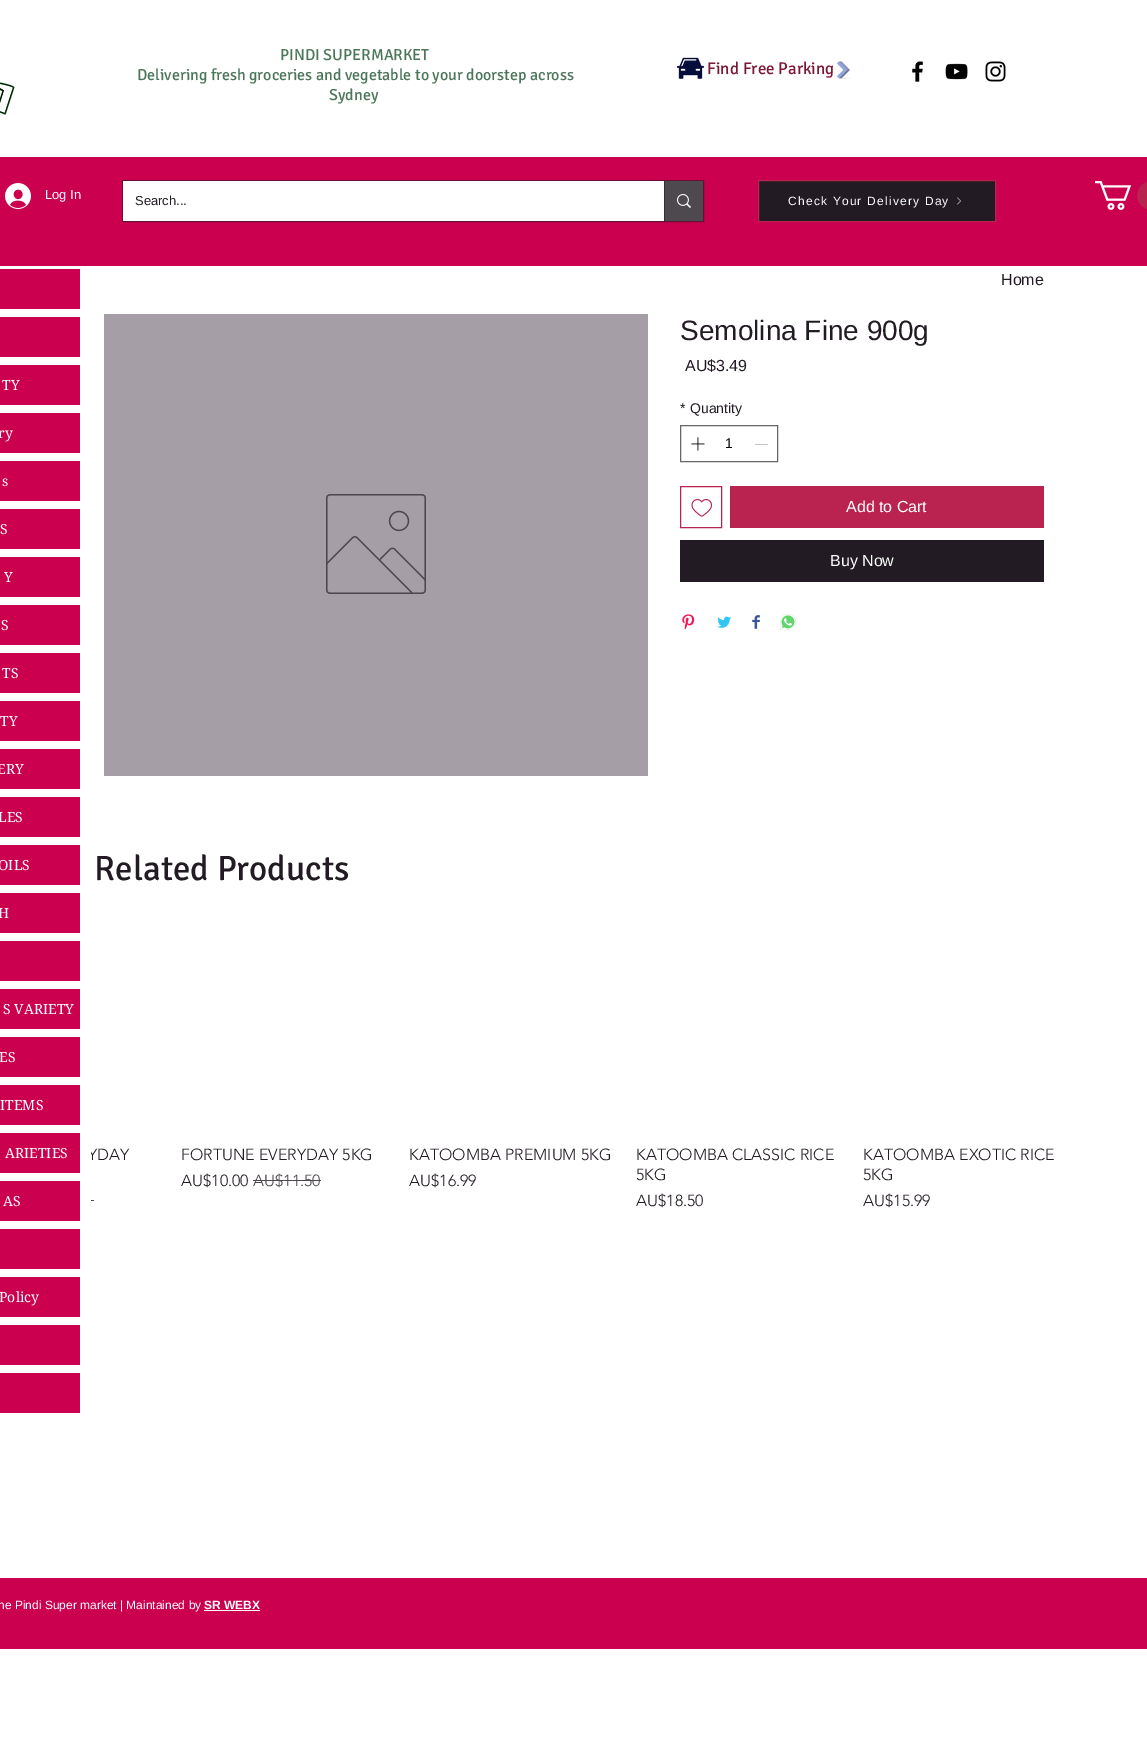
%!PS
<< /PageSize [1147 1763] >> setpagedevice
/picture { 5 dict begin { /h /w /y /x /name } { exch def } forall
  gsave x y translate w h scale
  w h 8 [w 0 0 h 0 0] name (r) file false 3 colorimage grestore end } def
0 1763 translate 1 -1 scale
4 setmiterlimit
1 setgray
0 0 1147 1763 rectfill
/Signika-Regular [16 0 0 -16 0 0] selectfont
0.298 0.463 0.349 setrgbcolor
280 60 moveto (PINDI SUPERMARKET) show
137 80 moveto (Delivering fresh groceries and vegetable to your doorstep across) show
329 100 moveto (Sydney) show
(img1.rgb) 677 57 27 22 picture
/Signika-Regular [17 0 0 -17 0 0] selectfont
0.486 0.09 0.208 setrgbcolor
707 74 moveto (Find Free Parking) show
(img2.rgb) 837 61 14 18 picture
(img3.rgb) 912 61 11 21 picture
(img4.rgb) 945 63 23 17 picture
(img5.rgb) 985 61 21 21 picture
(img6.rgb) 0 82 15 33 picture
0.796 0 0.31 setrgbcolor
0 157 1147 109 rectfill
(img7.rgb) 5 183 26 26 picture
/LiberationSans-Regular [13 0 0 -13 0 0] selectfont
1 setgray
45 199 moveto (Log In) show
0.4 0.063 0.208 setrgbcolor
122.5 180.5 581 41 rectstroke
1 setgray
123 181 541 40 rectfill
0.133 0.106 0.137 setrgbcolor
135 205 moveto (Search...) show
0.306 0.286 0.31 setrgbcolor
665 181 38 40 rectfill
0.204 0.176 0.208 setrgbcolor
664 181 1 40 rectfill
(img8.rgb) 677 194 14 14 picture
0.133 0.106 0.137 setrgbcolor
newpath 758.5 180.5 moveto 995.5 180.5 lineto 995.5 221.5 lineto 758.5 221.5 lineto closepath gsave fill grestore
0.729 0.137 0.314 setrgbcolor
stroke
/LiberationSans-Regular [12 0 0 -12 0 0] selectfont
1 setgray
788 205 moveto 1.2 0 (Check Your Delivery Day) ashow
(img9.rgb) 957 197 4 8 picture
(img10.rgb) 1095 181 52 29 picture
0.796 0 0.31 setrgbcolor
0 269 80 40 rectfill
0 317 80 40 rectfill
0 365 80 40 rectfill
/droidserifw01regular-Regular [14 0 0 -14 0 0] selectfont
1 setgray
2 390 moveto (TY) show
0.796 0 0.31 setrgbcolor
0 413 80 40 rectfill
1 setgray
-2 438 moveto (ry) show
0.796 0 0.31 setrgbcolor
0 461 80 40 rectfill
1 setgray
2 486 moveto (s) show
0.796 0 0.31 setrgbcolor
0 509 80 40 rectfill
1 setgray
0 534 moveto (S) show
0.796 0 0.31 setrgbcolor
0 557 80 40 rectfill
1 setgray
4 582 moveto (Y) show
0.796 0 0.31 setrgbcolor
0 605 80 40 rectfill
1 setgray
1 630 moveto (S) show
0.796 0 0.31 setrgbcolor
0 653 80 40 rectfill
1 setgray
2 678 moveto (TS) show
0.796 0 0.31 setrgbcolor
0 701 80 40 rectfill
1 setgray
0 726 moveto (TY) show
0.796 0 0.31 setrgbcolor
0 749 80 40 rectfill
1 setgray
-3 774 moveto (ERY) show
0.796 0 0.31 setrgbcolor
0 797 80 40 rectfill
1 setgray
-2 822 moveto (LES) show
0.796 0 0.31 setrgbcolor
0 845 80 40 rectfill
1 setgray
-2 870 moveto (OILS) show
0.796 0 0.31 setrgbcolor
0 893 80 40 rectfill
1 setgray
-2 918 moveto (H) show
0.796 0 0.31 setrgbcolor
0 941 80 40 rectfill
0 989 80 40 rectfill
1 setgray
3 1014 moveto (S VARIETY) show
0.796 0 0.31 setrgbcolor
0 1037 80 40 rectfill
1 setgray
-1 1062 moveto (ES) show
0.796 0 0.31 setrgbcolor
0 1085 80 40 rectfill
1 setgray
0 1110 moveto (ITEMS) show
0.796 0 0.31 setrgbcolor
0 1133 80 40 rectfill
1 setgray
5 1158 moveto (ARIETIES) show
0.796 0 0.31 setrgbcolor
0 1181 80 40 rectfill
1 setgray
3 1206 moveto (AS) show
0.796 0 0.31 setrgbcolor
0 1229 80 40 rectfill
0 1277 80 40 rectfill
1 setgray
-1 1302 moveto (Policy) show
0.796 0 0.31 setrgbcolor
0 1325 80 40 rectfill
0 1373 80 40 rectfill
/Signika-Regular [35 0 0 -35 0 0] selectfont
0.133 0.106 0.137 setrgbcolor
94 880 moveto (Related Products) show
/LiberationSans-Regular [16 0 0 -16 0 0] selectfont
1001 285 moveto (Home) show
0.651 0.62 0.655 setrgbcolor
104 314 544 462 rectfill
(img11.rgb) 326 494 100 100 picture
/LiberationSans-Regular [28 0 0 -28 0 0] selectfont
0.133 0.106 0.137 setrgbcolor
680 340 moveto (Semolina Fine 900g) show
/LiberationSans-Regular [16 0 0 -16 0 0] selectfont
685 371 moveto (AU$3.49) show
/LiberationSans-Regular [14 0 0 -14 0 0] selectfont
680 413 moveto (*) show
690 413 moveto (Quantity) show
0.4 setgray
680.5 425.5 97 36 rectstroke
(img12.rgb) 691 437 14 14 picture
0 setgray
725 448 moveto (1) show
0.78 setgray
755 444 13 1 rectfill
0.729 0.137 0.314 setrgbcolor
680.5 486.5 41 41 rectstroke
(img13.rgb) 691 499 22 18 picture
730 486 314 42 rectfill
/LiberationSans-Regular [16 0 0 -16 0 0] selectfont
1 setgray
846 512 moveto (Add to Cart) show
0.133 0.106 0.137 setrgbcolor
680 540 364 42 rectfill
1 setgray
830 566 moveto (Buy Now) show
(img14.rgb) 682 614 13 16 picture
(img15.rgb) 717 616 15 12 picture
(img16.rgb) 752 615 8 14 picture
(img17.rgb) 780 614 16 16 picture
gsave
91 922 980 291 rectclip
/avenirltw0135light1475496-Light [16 0 0 -16 0 0] selectfont
0.133 0.106 0.137 setrgbcolor
88 1160 moveto (YDAY) show
grestore
0.306 0.275 0.31 setrgbcolor
91 1200 3 1 rectfill
/avenirltw0135light1475496-Light [16 0 0 -16 0 0] selectfont
0.133 0.106 0.137 setrgbcolor
181 1160 moveto (FORTUNE EVERYDAY 5KG) show
181 1186 moveto (AU$10.00) show
0.306 0.275 0.31 setrgbcolor
253 1186 moveto (AU$11.50) show
253 1180 68 1 rectfill
0.133 0.106 0.137 setrgbcolor
409 1160 moveto (KATOOMBA PREMIUM 5KG) show
409 1186 moveto (AU$16.99) show
636 1160 moveto (KATOOMBA CLASSIC RICE) show
636 1180 moveto (5KG) show
636 1206 moveto (AU$18.50) show
863 1160 moveto (KATOOMBA EXOTIC RICE) show
863 1180 moveto (5KG) show
863 1206 moveto (AU$15.99) show
0.796 0 0.31 setrgbcolor
0 1578 1147 71 rectfill
/LiberationSans-Regular [12 0 0 -12 0 0] selectfont
1 setgray
-2 1609 moveto (ne Pindi Super market | Maintained by) show
/LiberationSans-Bold [12 0 0 -12 0 0] selectfont
204 1609 moveto (SR WEBX) show
204 1610 56 1 rectfill
showpage
